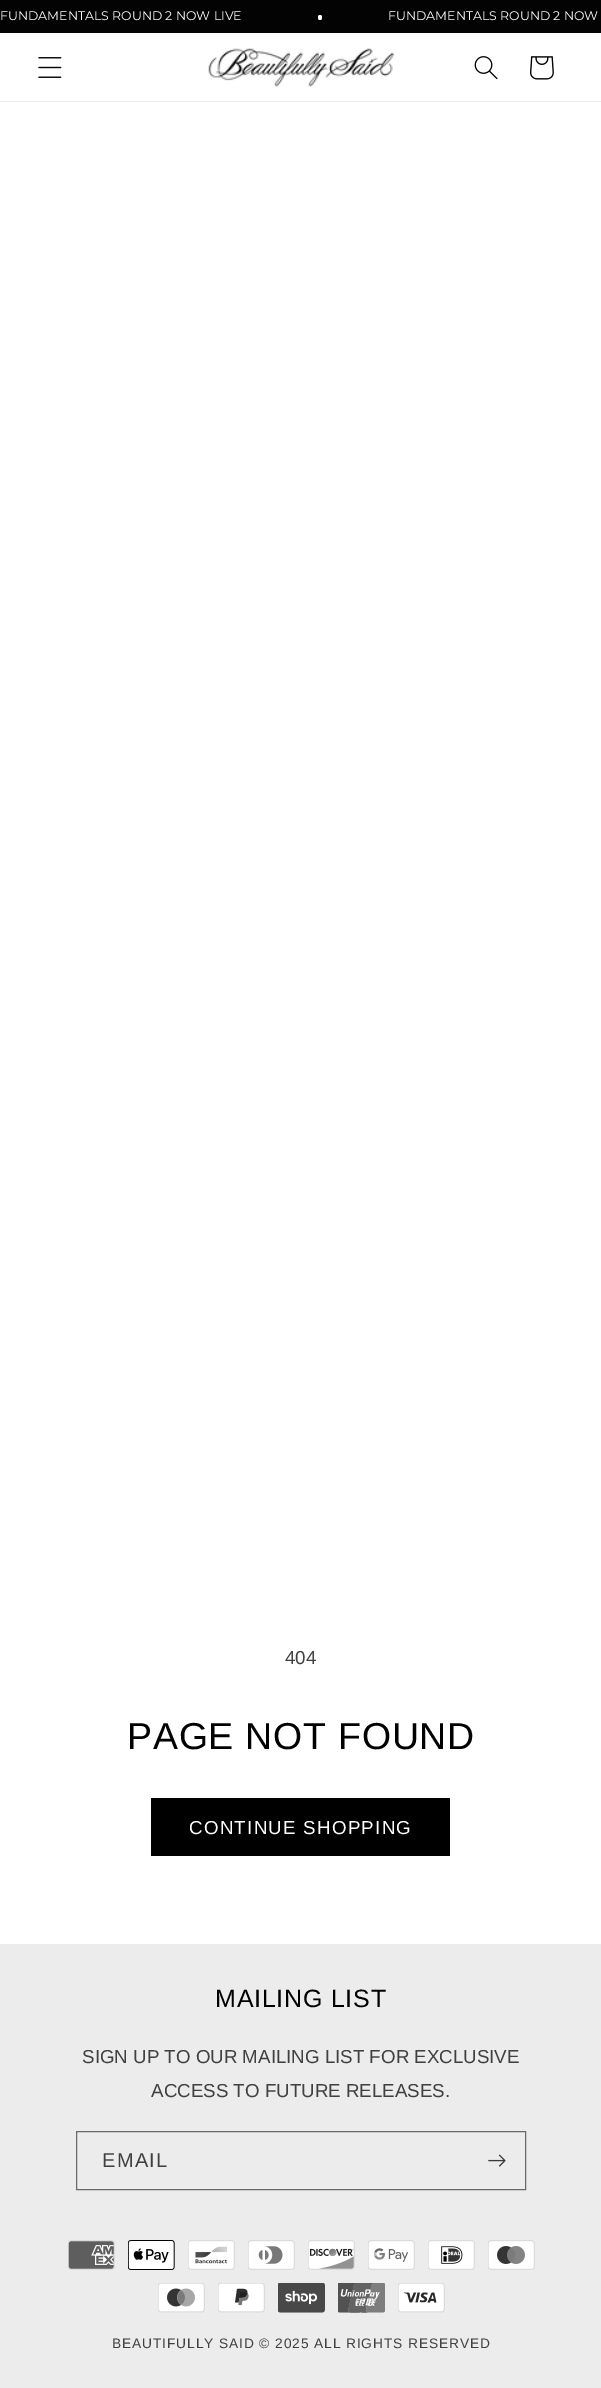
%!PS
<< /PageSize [601 2388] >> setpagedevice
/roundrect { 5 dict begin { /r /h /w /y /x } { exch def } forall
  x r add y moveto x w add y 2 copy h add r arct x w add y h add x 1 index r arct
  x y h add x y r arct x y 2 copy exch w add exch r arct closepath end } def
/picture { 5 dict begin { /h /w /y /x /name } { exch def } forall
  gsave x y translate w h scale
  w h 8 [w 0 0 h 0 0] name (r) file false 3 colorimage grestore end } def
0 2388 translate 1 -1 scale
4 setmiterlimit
1 setgray
0 0 601 2388 rectfill
0.012 setgray
0 0 601 33 rectfill
/Montserrat-Regular [12.5 0 0 -12.5 0 0] selectfont
1 setgray
0 20 moveto (FUNDAMENTALS ROUND 2 NOW LIVE) show
318 15 4 5 2 roundrect fill
388 20 moveto (FUNDAMENTALS ROUND 2 NOW) show
0.922 setgray
0 101 601 1 rectfill
(img1.rgb) 38 57 24 21 picture
(img2.rgb) 208 48 186 39 picture
(img3.rgb) 474 56 24 24 picture
(img4.rgb) 530 56 24 24 picture
/LiberationSans-Regular [18.75 0 0 -18.75 0 0] selectfont
0.251 setgray
285 1664 moveto (404) show
/LiberationSans-Regular [37.5 0 0 -37.5 0 0] selectfont
0 setgray
127 1749 moveto 0.75 0 (PAGE NOT FOUND) ashow
151 1798 299 58 rectfill
/LiberationSans-Regular [18.75 0 0 -18.75 0 0] selectfont
1 setgray
189 1834 moveto 1.25 0 (CONTINUE SHOPPING) ashow
0.925 setgray
0 1944 601 444 rectfill
/LiberationSans-Regular [25 0 0 -25 0 0] selectfont
0 setgray
215 2007 moveto 0.75 0 (MAILING LIST) ashow
/LiberationSans-Regular [18.75 0 0 -18.75 0 0] selectfont
0.251 setgray
82 2063 moveto (SIGN UP TO OUR MAILING LIST FOR EXCLUSIVE) show
151 2097 moveto (ACCESS TO FUTURE RELEASES.) show
0.416 setgray
76.5 2131.5 449 58 rectstroke
/LiberationSans-Regular [20 0 0 -20 0 0] selectfont
0.251 setgray
102 2167 moveto 1.25 0 (EMAIL) ashow
(img5.rgb) 488 2154 18 13 picture
(img6.rgb) 68 2240 47 30 picture
(img7.rgb) 128 2240 47 30 picture
(img8.rgb) 188 2240 47 30 picture
(img9.rgb) 248 2240 47 30 picture
(img10.rgb) 308 2240 47 30 picture
(img11.rgb) 368 2240 47 30 picture
(img12.rgb) 428 2240 47 30 picture
(img13.rgb) 488 2240 47 30 picture
(img14.rgb) 158 2283 47 30 picture
(img15.rgb) 218 2283 47 30 picture
(img16.rgb) 278 2283 47 30 picture
(img17.rgb) 338 2283 47 30 picture
(img18.rgb) 398 2283 47 30 picture
/LiberationSans-Regular [13.75 0 0 -13.75 0 0] selectfont
112 2348 moveto 0.9 0 (BEAUTIFULLY SAID © 2025 ALL RIGHTS RESERVED) ashow
showpage
